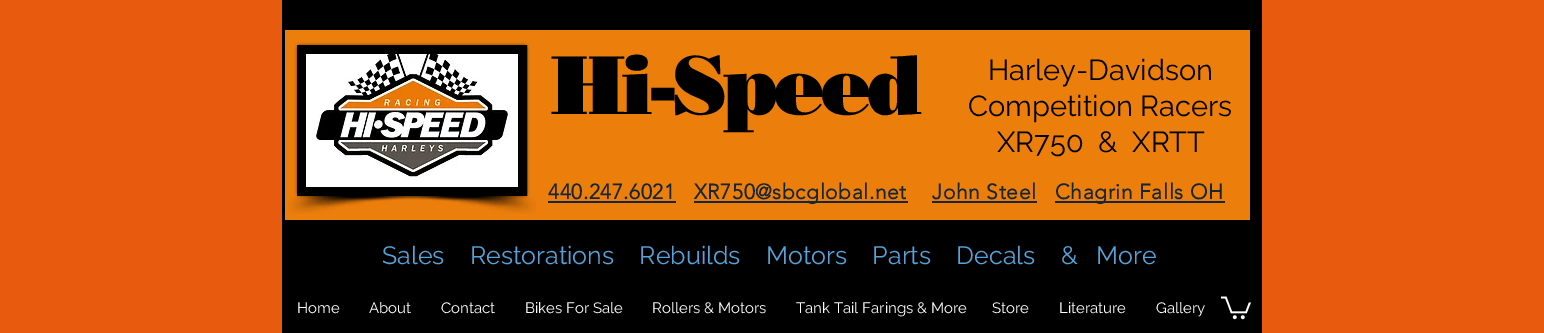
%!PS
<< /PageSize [1544 333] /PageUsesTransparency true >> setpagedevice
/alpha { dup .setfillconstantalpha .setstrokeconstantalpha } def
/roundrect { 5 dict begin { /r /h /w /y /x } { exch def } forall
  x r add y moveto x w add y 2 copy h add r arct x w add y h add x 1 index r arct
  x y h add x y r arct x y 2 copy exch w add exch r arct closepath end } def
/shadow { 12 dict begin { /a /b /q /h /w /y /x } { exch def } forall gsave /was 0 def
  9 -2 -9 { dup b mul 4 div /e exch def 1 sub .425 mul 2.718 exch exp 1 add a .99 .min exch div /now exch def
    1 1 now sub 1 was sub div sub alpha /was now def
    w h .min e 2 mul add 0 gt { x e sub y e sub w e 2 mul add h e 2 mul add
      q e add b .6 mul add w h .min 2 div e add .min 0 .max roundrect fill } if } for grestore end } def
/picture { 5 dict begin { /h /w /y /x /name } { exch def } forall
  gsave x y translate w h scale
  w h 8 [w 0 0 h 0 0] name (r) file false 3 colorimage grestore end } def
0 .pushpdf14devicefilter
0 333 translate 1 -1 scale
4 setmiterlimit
0.91 0.353 0.051 setrgbcolor
0 0 1544 333 rectfill
0 setgray
282 0 980 333 rectfill
0.925 0.494 0.047 setrgbcolor
285 30 965 190 rectfill
0 setgray
297 45 230 151 3 1.5 0.5 shadow
9 setlinewidth
newpath 301.5 49.5 moveto 522.5 49.5 lineto 522.5 191.5 lineto 301.5 191.5 lineto closepath stroke
(img1.rgb) 306 54 212 133 picture
(img2.rgb) 288 196 154 18 picture
(img3.rgb) 395 196 141 18 picture
/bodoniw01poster-Black [83 0 0 -83 0 0] selectfont
551 114 moveto -4.25 0 (Hi-Speed) ashow
/Raleway-Regular [29 0 0 -29 0 0] selectfont
988 80 moveto (Harley-Davidson) show
968 116 moveto (Competition Racers) show
997 152 moveto (XR750  &  XRTT) show
/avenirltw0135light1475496-Bold [21 0 0 -21 0 0] selectfont
0.082 0.149 0.208 setrgbcolor
548 199 moveto 0.6 0 (440.247.6021) ashow
548 201 128 2 rectfill
694 201 214 2 rectfill
694 199 moveto 0.6 0 (XR750@sbcglobal.net) ashow
932 199 moveto 0.6 0 (John Steel) ashow
932 201 105 2 rectfill
1055 201 170 2 rectfill
1055 199 moveto 0.6 0 (Chagrin Falls OH) ashow
/Raleway-Regular [25 0 0 -25 0 0] selectfont
0.333 0.639 0.855 setrgbcolor
382 264 moveto (Sales    Restorations    Rebuilds    Motors    Parts    Decals    &   More) show
/Raleway-Regular [15 0 0 -15 0 0] selectfont
1 setgray
297 313 moveto (Home) show
369 313 moveto (About) show
441 313 moveto (Contact) show
525 313 moveto (Bikes For Sale) show
652 313 moveto (Rollers & Motors) show
796 313 moveto (Tank Tail Farings & More) show
992 313 moveto (Store) show
1059 313 moveto (Literature) show
1156 313 moveto (Gallery) show
(img4.rgb) 1221 296 30 24 picture
.poppdf14devicefilter showpage
